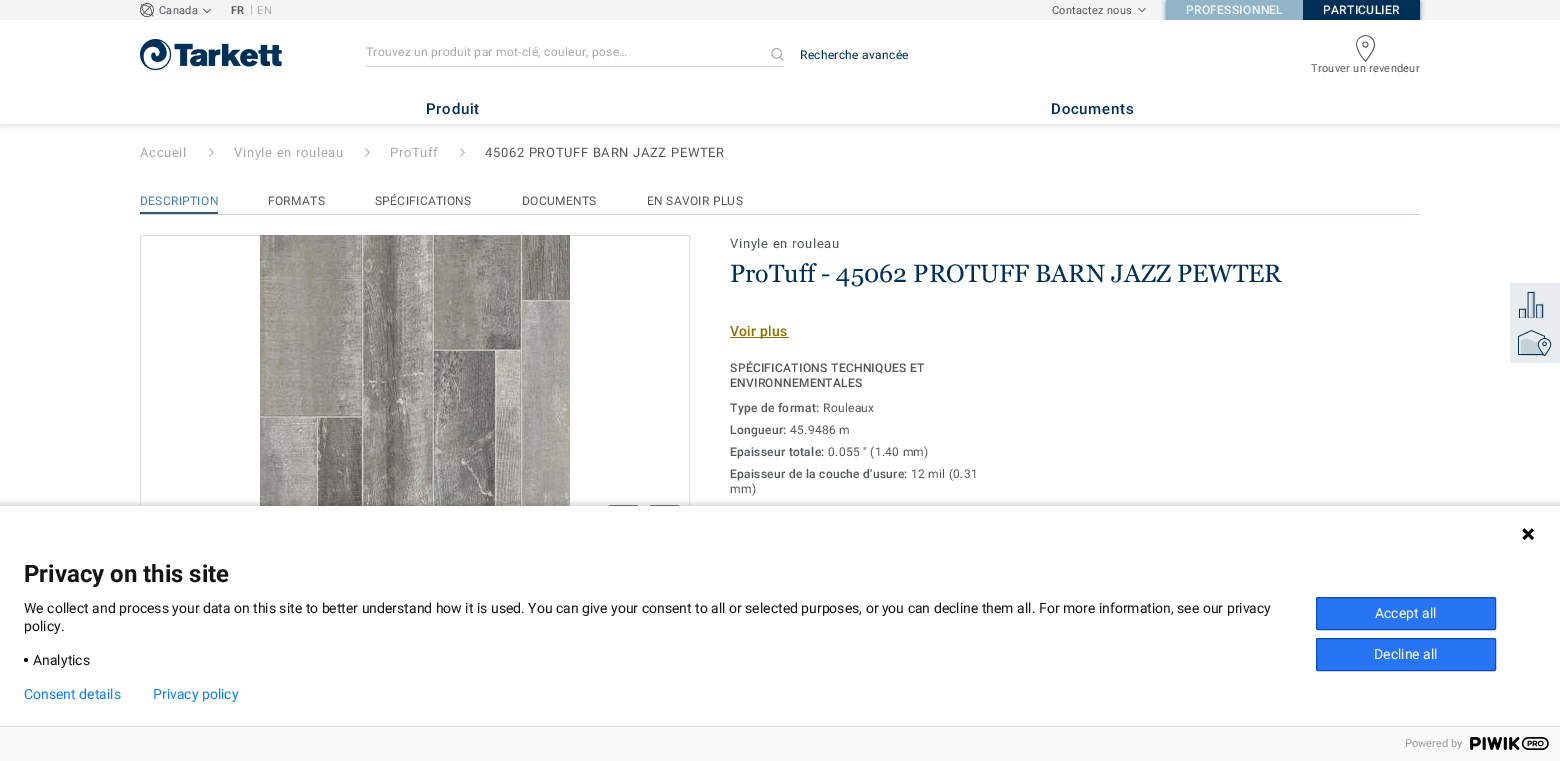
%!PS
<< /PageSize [1560 761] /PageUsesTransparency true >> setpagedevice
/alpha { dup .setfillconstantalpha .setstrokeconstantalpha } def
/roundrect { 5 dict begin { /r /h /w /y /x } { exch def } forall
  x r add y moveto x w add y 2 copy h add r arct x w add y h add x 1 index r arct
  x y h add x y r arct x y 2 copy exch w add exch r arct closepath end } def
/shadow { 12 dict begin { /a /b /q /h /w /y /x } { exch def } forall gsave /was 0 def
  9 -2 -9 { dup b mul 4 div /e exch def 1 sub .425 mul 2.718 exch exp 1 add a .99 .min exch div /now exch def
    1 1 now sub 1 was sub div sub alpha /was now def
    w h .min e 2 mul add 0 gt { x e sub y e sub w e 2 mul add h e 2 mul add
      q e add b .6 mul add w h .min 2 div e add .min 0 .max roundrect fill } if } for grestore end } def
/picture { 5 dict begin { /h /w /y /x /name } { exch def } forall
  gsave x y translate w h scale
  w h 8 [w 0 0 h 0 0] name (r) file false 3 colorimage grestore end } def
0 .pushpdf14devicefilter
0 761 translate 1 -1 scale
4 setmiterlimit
1 setgray
0 0 1560 761 rectfill
0.957 setgray
0 0 1560 20 rectfill
(img1.rgb) 140 3 14 14 picture
/Roboto-Regular [11 0 0 -11 0 0] selectfont
0.325 0.337 0.353 setrgbcolor
159 14 moveto 0.25 0 (Canada) ashow
(img2.rgb) 203 8 8 6 picture
/Roboto-Medium [11 0 0 -11 0 0] selectfont
231 14 moveto 0.25 0 (FR) ashow
/Roboto-Regular [11 0 0 -11 0 0] selectfont
0.659 0.663 0.671 setrgbcolor
250 13 moveto (|) show
257 14 moveto 0.25 0 (EN) ashow
0.325 0.337 0.353 setrgbcolor
1052 14 moveto 0.25 0 (Contactez nous) ashow
(img3.rgb) 1138 7 8 6 picture
gsave
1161 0 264 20 rectclip
0.384 0.557 0.659 setrgbcolor
1166 2 254 20 0 2.5 1 shadow
grestore
0.573 0.706 0.784 setrgbcolor
1166 0 137 20 rectfill
/Roboto-Medium [12 0 0 -12 0 0] selectfont
0.965 setgray
1186 14 moveto 0.3 0 (PROFESSIONNEL) ashow
0 0.188 0.341 setrgbcolor
1303 0 117 20 rectfill
1 setgray
1323 14 moveto 0.3 0 (PARTICULIER) ashow
(img4.rgb) 140 39 142 32 picture
0.831 0.831 0.835 setrgbcolor
366 66 418 1 rectfill
/Roboto-Regular [12 0 0 -12 0 0] selectfont
0.659 0.663 0.671 setrgbcolor
366 56 moveto 0.3 0 (Trouvez un produit par mot-clé, couleur, pose…) ashow
(img5.rgb) 771 48 13 13 picture
0 0.188 0.341 setrgbcolor
800 59 moveto 0.3 0 (Recherche avancée) ashow
(img6.rgb) 1356 35 20 27 picture
/Roboto-Regular [11 0 0 -11 0 0] selectfont
0.325 0.337 0.353 setrgbcolor
1311 72 moveto 0.25 0 (Trouver un revendeur) ashow
gsave
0 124 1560 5 rectclip
0.486 setgray
0 93 1560 34 0 2 0.16 shadow
grestore
/Roboto-Medium [15 0 0 -15 0 0] selectfont
0 0.188 0.341 setrgbcolor
426 114 moveto 0.75 0 (Produit) ashow
1051 114 moveto 0.75 0 (Documents) ashow
/Roboto-Regular [13 0 0 -13 0 0] selectfont
0.659 0.663 0.671 setrgbcolor
140 157 moveto 0.65 0 (Accueil) ashow
(img7.rgb) 209 148 5 9 picture
234 157 moveto 0.65 0 (Vinyle en rouleau) ashow
(img7.rgb) 365 148 5 9 picture
390 157 moveto 0.65 0 (ProTuff) ashow
(img7.rgb) 460 148 5 9 picture
0.325 0.337 0.353 setrgbcolor
485 157 moveto 0.65 0 (45062 PROTUFF BARN JAZZ PEWTER) ashow
0.2 0.349 0.475 setrgbcolor
140 212 78 2 rectfill
/Roboto-Regular [12 0 0 -12 0 0] selectfont
0.271 0.494 0.682 setrgbcolor
140 205 moveto 0.3 0 (DESCRIPTION) ashow
0.325 0.337 0.353 setrgbcolor
268 205 moveto 0.3 0 (FORMATS) ashow
375 205 moveto 0.3 0 (SPÉCIFICATIONS) ashow
522 205 moveto 0.3 0 (DOCUMENTS) ashow
647 205 moveto 0.3 0 (EN SAVOIR PLUS) ashow
0.8 0.839 0.867 setrgbcolor
140 214 1280 1 rectfill
0.89 setgray
140.5 235.5 549 309 rectstroke
(img8.rgb) 260 235 310 271 picture
0.451 setgray
609 505 29 1 rectfill
650 505 29 1 rectfill
/Roboto-Regular [13 0 0 -13 0 0] selectfont
0.325 0.337 0.353 setrgbcolor
730 248 moveto 0.65 0 (Vinyle en rouleau) ashow
/Georgia-Regular [25 0 0 -25 0 0] selectfont
0 0.188 0.341 setrgbcolor
730 282 moveto (ProTuff - 45062 PROTUFF BARN JAZZ PEWTER) show
0.557 0.435 0 setrgbcolor
730 337 59 1 rectfill
/Roboto-Medium [14 0 0 -14 0 0] selectfont
730 336 moveto 0.25 0 (Voir plus) ashow
/Roboto-Medium [12 0 0 -12 0 0] selectfont
0.325 0.337 0.353 setrgbcolor
730 372 moveto 0.3 0 (SPÉCIFICATIONS TECHNIQUES ET) ashow
730 387 moveto 0.3 0 (ENVIRONNEMENTALES) ashow
730 412 moveto 0.3 0 (Type de format:) ashow
/Roboto-Regular [12 0 0 -12 0 0] selectfont
823 412 moveto 0.3 0 (Rouleaux) ashow
/Roboto-Medium [12 0 0 -12 0 0] selectfont
730 434 moveto 0.3 0 (Longueur:) ashow
/Roboto-Regular [12 0 0 -12 0 0] selectfont
790 434 moveto 0.3 0 (45.9486 m) ashow
/Roboto-Medium [12 0 0 -12 0 0] selectfont
730 456 moveto 0.3 0 (Epaisseur totale:) ashow
/Roboto-Regular [12 0 0 -12 0 0] selectfont
828 456 moveto 0.3 0 (0.055 " \(1.40 mm\)) ashow
/Roboto-Medium [12 0 0 -12 0 0] selectfont
730 478 moveto 0.3 0 (Epaisseur de la couche d'usure:) ashow
/Roboto-Regular [12 0 0 -12 0 0] selectfont
911 478 moveto 0.3 0 (12 mil \(0.31) ashow
730 493 moveto 0.3 0 (mm\)) ashow
0.91 0.925 0.937 setrgbcolor
1510 283 50 80 rectfill
(img9.rgb) 1519 291 25 27 picture
(img10.rgb) 1518 330 34 26 picture
0 setgray
-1 503 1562 257 0 2.5 0.14 shadow
1 setgray
0 506 1560 220 rectfill
(img11.rgb) 1522 528 13 13 picture
/Roboto-Bold [24 0 0 -24 0 0] selectfont
0.075 setgray
24 582 moveto (Privacy on this site) show
/Roboto-Regular [14 0 0 -14 0 0] selectfont
24 613 moveto (We collect and process your data on this site to better understand how it is used. You can give your consent to all or selected purposes, or you can decline them all. For more information, see our privacy) show
24 631 moveto (policy.) show
newpath 26 660 2 0 360 arc closepath fill
33 665 moveto (Analytics) show
0.153 0.459 0.949 setrgbcolor
1316.5 597.5 179 32 1.5 roundrect gsave fill grestore
0.043 0.294 0.702 setrgbcolor
stroke
1 setgray
1375 618 moveto (Accept all) show
0.153 0.459 0.949 setrgbcolor
1316.5 638.5 179 32 1.5 roundrect gsave fill grestore
0.043 0.294 0.702 setrgbcolor
stroke
1 setgray
1374 659 moveto (Decline all) show
0.063 0.494 0.945 setrgbcolor
24 699 moveto (Consent details) show
153 699 moveto (Privacy policy) show
0.98 setgray
0 727 1560 34 rectfill
0.867 setgray
0 726 1560 1 rectfill
/Roboto-Regular [11 0 0 -11 0 0] selectfont
0.6 setgray
1405 747 moveto (Powered by) show
(img12.rgb) 1470 737 79 13 picture
.poppdf14devicefilter showpage
